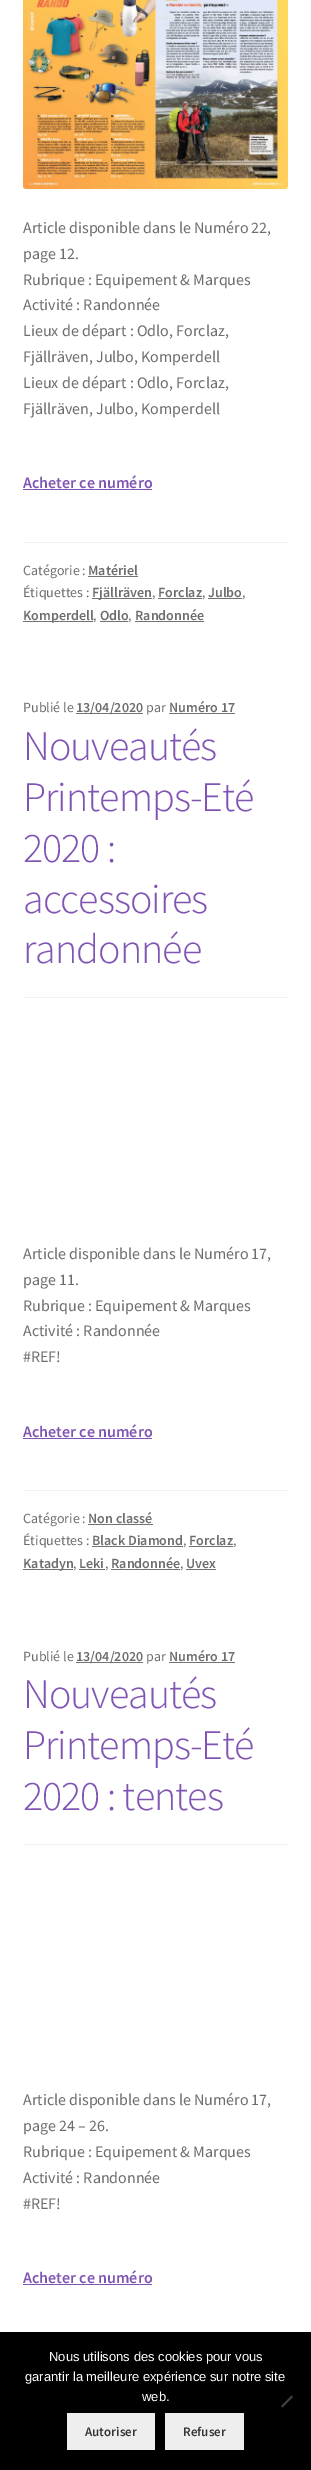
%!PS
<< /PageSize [311 2470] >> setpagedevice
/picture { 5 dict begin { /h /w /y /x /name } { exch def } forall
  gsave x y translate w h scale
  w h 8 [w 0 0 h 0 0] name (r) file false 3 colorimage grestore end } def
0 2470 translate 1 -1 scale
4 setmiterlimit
1 setgray
0 0 311 2470 rectfill
(img1.rgb) 23 0 265 189 picture
/SourceSansPro-Regular [16 0 0 -16 0 0] selectfont
0.427 setgray
23 233 moveto (Article disponible dans le Numéro 22,) show
23 259 moveto (page 12.) show
23 285 moveto (Rubrique : Equipement & Marques) show
23 310 moveto (Activité : Randonnée) show
23 336 moveto (Lieux de départ : Odlo, Forclaz,) show
23 362 moveto (Fjällräven, Julbo, Komperdell) show
23 388 moveto (Lieux de départ : Odlo, Forclaz,) show
23 414 moveto (Fjällräven, Julbo, Komperdell) show
/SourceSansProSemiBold-SemiBold [16 0 0 -16 0 0] selectfont
0.498 0.329 0.702 setrgbcolor
23 488 moveto (Acheter ce numéro) show
23 489 129 1 rectfill
0.949 setgray
23 542 265 1 rectfill
/SourceSansPro-Regular [14 0 0 -14 0 0] selectfont
0.427 setgray
23 575 moveto (Catégorie :) show
/SourceSansProSemiBold-SemiBold [14 0 0 -14 0 0] selectfont
88 575 moveto (Matériel) show
0.447 setgray
88 576 50 1 rectfill
/SourceSansPro-Regular [14 0 0 -14 0 0] selectfont
0.427 setgray
23 597 moveto (Étiquettes :) show
0.447 setgray
92 598 60 1 rectfill
/SourceSansProSemiBold-SemiBold [14 0 0 -14 0 0] selectfont
0.427 setgray
92 597 moveto (Fjällräven) show
/SourceSansPro-Regular [14 0 0 -14 0 0] selectfont
152 597 moveto (,) show
/SourceSansProSemiBold-SemiBold [14 0 0 -14 0 0] selectfont
158 597 moveto (Forclaz) show
0.447 setgray
158 598 44 1 rectfill
/SourceSansPro-Regular [14 0 0 -14 0 0] selectfont
0.427 setgray
202 597 moveto (,) show
/SourceSansProSemiBold-SemiBold [14 0 0 -14 0 0] selectfont
208 597 moveto (Julbo) show
0.447 setgray
208 598 34 1 rectfill
/SourceSansPro-Regular [14 0 0 -14 0 0] selectfont
0.427 setgray
242 597 moveto (,) show
0.447 setgray
23 621 70 1 rectfill
/SourceSansProSemiBold-SemiBold [14 0 0 -14 0 0] selectfont
0.427 setgray
23 620 moveto (Komperdell) show
/SourceSansPro-Regular [14 0 0 -14 0 0] selectfont
93 620 moveto (,) show
/SourceSansProSemiBold-SemiBold [14 0 0 -14 0 0] selectfont
100 620 moveto (Odlo) show
0.447 setgray
100 621 28 1 rectfill
/SourceSansPro-Regular [14 0 0 -14 0 0] selectfont
0.427 setgray
128 620 moveto (,) show
/SourceSansProSemiBold-SemiBold [14 0 0 -14 0 0] selectfont
135 620 moveto (Randonnée) show
0.447 setgray
135 621 69 1 rectfill
0.949 setgray
23 997 265 1 rectfill
/SourceSansPro-Regular [14 0 0 -14 0 0] selectfont
0.427 setgray
23 712 moveto (Publié le) show
0.447 setgray
76 713 67 1 rectfill
/SourceSansProSemiBold-SemiBold [14 0 0 -14 0 0] selectfont
0.427 setgray
76 712 moveto (13/04/2020) show
/SourceSansPro-Regular [14 0 0 -14 0 0] selectfont
146 712 moveto (par) show
0.447 setgray
169 713 66 1 rectfill
/SourceSansProSemiBold-SemiBold [14 0 0 -14 0 0] selectfont
0.427 setgray
169 712 moveto (Numéro 17) show
/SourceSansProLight-Light [42 0 0 -42 0 0] selectfont
0.498 0.329 0.702 setrgbcolor
23 760 moveto -1 0 (Nouveautés) ashow
23 811 moveto -1 0 (Printemps-Eté) ashow
23 862 moveto -1 0 (2020 :) ashow
23 913 moveto -1 0 (accessoires) ashow
23 963 moveto -1 0 (randonnée) ashow
/SourceSansPro-Regular [16 0 0 -16 0 0] selectfont
0.427 setgray
23 1259 moveto (Article disponible dans le Numéro 17,) show
23 1285 moveto (page 11.) show
23 1311 moveto (Rubrique : Equipement & Marques) show
23 1336 moveto (Activité : Randonnée) show
23 1362 moveto (#REF!) show
/SourceSansProSemiBold-SemiBold [16 0 0 -16 0 0] selectfont
0.498 0.329 0.702 setrgbcolor
23 1437 moveto (Acheter ce numéro) show
23 1438 129 1 rectfill
0.949 setgray
23 1490 265 1 rectfill
/SourceSansPro-Regular [14 0 0 -14 0 0] selectfont
0.427 setgray
23 1523 moveto (Catégorie :) show
/SourceSansProSemiBold-SemiBold [14 0 0 -14 0 0] selectfont
88 1523 moveto (Non classé) show
0.447 setgray
88 1524 65 1 rectfill
/SourceSansPro-Regular [14 0 0 -14 0 0] selectfont
0.427 setgray
23 1545 moveto (Étiquettes :) show
/SourceSansProSemiBold-SemiBold [14 0 0 -14 0 0] selectfont
92 1545 moveto (Black Diamond) show
0.447 setgray
92 1546 91 1 rectfill
/SourceSansPro-Regular [14 0 0 -14 0 0] selectfont
0.427 setgray
183 1545 moveto (,) show
/SourceSansProSemiBold-SemiBold [14 0 0 -14 0 0] selectfont
189 1545 moveto (Forclaz) show
0.447 setgray
189 1546 44 1 rectfill
/SourceSansPro-Regular [14 0 0 -14 0 0] selectfont
0.427 setgray
233 1545 moveto (,) show
0.447 setgray
23 1569 50 1 rectfill
/SourceSansProSemiBold-SemiBold [14 0 0 -14 0 0] selectfont
0.427 setgray
23 1568 moveto (Katadyn) show
/SourceSansPro-Regular [14 0 0 -14 0 0] selectfont
73 1568 moveto (,) show
/SourceSansProSemiBold-SemiBold [14 0 0 -14 0 0] selectfont
79 1568 moveto (Leki) show
0.447 setgray
79 1569 26 1 rectfill
/SourceSansPro-Regular [14 0 0 -14 0 0] selectfont
0.427 setgray
105 1568 moveto (,) show
/SourceSansProSemiBold-SemiBold [14 0 0 -14 0 0] selectfont
111 1568 moveto (Randonnée) show
0.447 setgray
111 1569 69 1 rectfill
/SourceSansPro-Regular [14 0 0 -14 0 0] selectfont
0.427 setgray
180 1568 moveto (,) show
/SourceSansProSemiBold-SemiBold [14 0 0 -14 0 0] selectfont
186 1568 moveto (Uvex) show
0.447 setgray
186 1569 30 1 rectfill
0.949 setgray
23 1844 265 1 rectfill
/SourceSansPro-Regular [14 0 0 -14 0 0] selectfont
0.427 setgray
23 1661 moveto (Publié le) show
0.447 setgray
76 1662 67 1 rectfill
/SourceSansProSemiBold-SemiBold [14 0 0 -14 0 0] selectfont
0.427 setgray
76 1661 moveto (13/04/2020) show
/SourceSansPro-Regular [14 0 0 -14 0 0] selectfont
146 1661 moveto (par) show
0.447 setgray
169 1662 66 1 rectfill
/SourceSansProSemiBold-SemiBold [14 0 0 -14 0 0] selectfont
0.427 setgray
169 1661 moveto (Numéro 17) show
/SourceSansProLight-Light [42 0 0 -42 0 0] selectfont
0.498 0.329 0.702 setrgbcolor
23 1708 moveto -1 0 (Nouveautés) ashow
23 1759 moveto -1 0 (Printemps-Eté) ashow
23 1810 moveto -1 0 (2020 : tentes) ashow
/SourceSansPro-Regular [16 0 0 -16 0 0] selectfont
0.427 setgray
23 2105 moveto (Article disponible dans le Numéro 17,) show
23 2131 moveto (page 24 – 26.) show
23 2157 moveto (Rubrique : Equipement & Marques) show
23 2183 moveto (Activité : Randonnée) show
23 2209 moveto (#REF!) show
/SourceSansProSemiBold-SemiBold [16 0 0 -16 0 0] selectfont
0.498 0.329 0.702 setrgbcolor
23 2283 moveto (Acheter ce numéro) show
23 2284 129 1 rectfill
0 setgray
0 2332 311 138 rectfill
/LiberationSans-Regular [13 0 0 -13 0 0] selectfont
1 setgray
49 2361 moveto (Nous utilisons des cookies pour vous) show
25 2381 moveto (garantir la meilleure expérience sur notre site) show
142 2401 moveto (web.) show
0.251 setgray
newpath 291.5 2395.5 moveto 293 2397 lineto 282.5 2407.5 lineto 281 2406 lineto closepath fill
0.933 setgray
67 2413 88 37 rectfill
/SourceSansProSemiBold-SemiBold [13 0 0 -13 0 0] selectfont
0.2 setgray
85 2436 moveto (Autoriser) show
0.933 setgray
165 2413 79 37 rectfill
0.2 setgray
183 2436 moveto (Refuser) show
showpage
